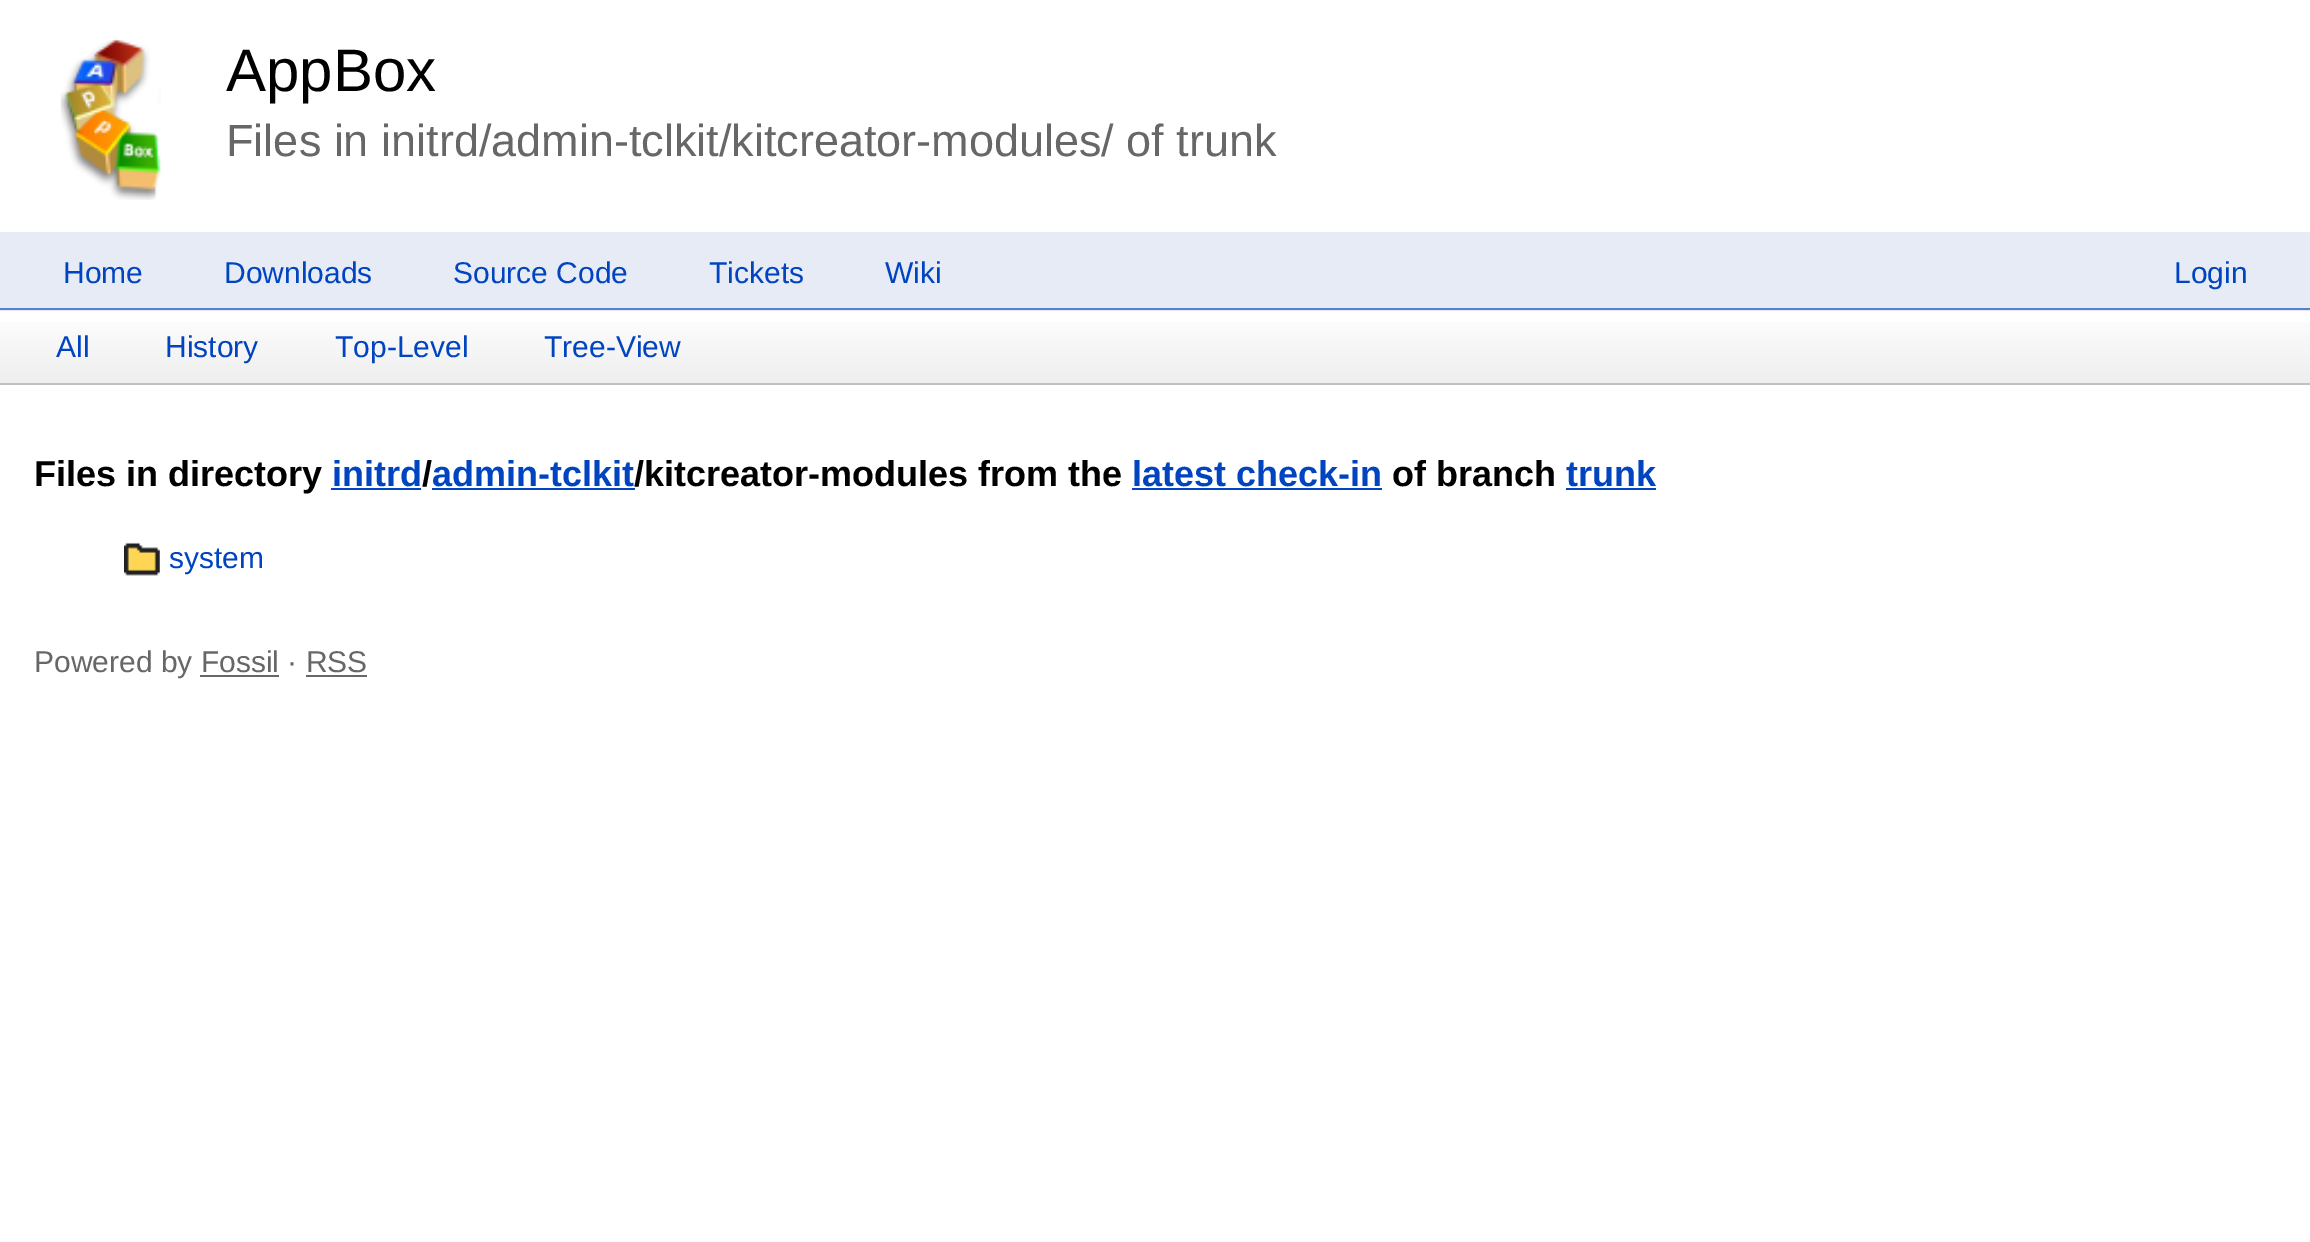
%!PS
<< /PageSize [2310 1242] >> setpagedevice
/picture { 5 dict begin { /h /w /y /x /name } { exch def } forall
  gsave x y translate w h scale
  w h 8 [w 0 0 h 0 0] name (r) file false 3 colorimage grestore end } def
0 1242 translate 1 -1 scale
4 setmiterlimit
1 setgray
0 0 2310 1242 rectfill
(img1.rgb) 60 38 101 162 picture
/LiberationSans-Regular [60 0 0 -60 0 0] selectfont
0 setgray
226 91 moveto (AppBox) show
/LiberationSans-Regular [45 0 0 -45 0 0] selectfont
0.4 0.408 0.4 setrgbcolor
226 156 moveto (Files in initrd/admin-tclkit/kitcreator-modules/ of trunk) show
0.902 0.922 0.965 setrgbcolor
0 232 2310 79 rectfill
0.349 0.502 0.8 setrgbcolor
0 308 2310 2 rectfill
/LiberationSans-Regular [30 0 0 -30 0 0] selectfont
0 0.267 0.753 setrgbcolor
63 283 moveto (Home) show
224 283 moveto (Downloads) show
453 283 moveto (Source Code) show
709 283 moveto (Tickets) show
885 283 moveto (Wiki) show
2174 283 moveto (Login) show
gsave newpath 0 322 moveto 2310 322 lineto 2310 383 lineto 0 383 lineto closepath clip newpath
<< /ShadingType 2 /ColorSpace /DeviceRGB /Coords [0 383 0 311] /Extend [true true] /Function << /FunctionType 2 /Domain [0 1] /C0 [0.933 0.933 0.933] /C1 [1 1 1] /N 1 >> >> shfill grestore
0.753 setgray
0 383 2310 2 rectfill
0 0.267 0.753 setrgbcolor
56 357 moveto (All) show
165 357 moveto (History) show
335 357 moveto (Top-Level) show
544 357 moveto (Tree-View) show
/LiberationSans-Bold [36 0 0 -36 0 0] selectfont
0 setgray
34 486 moveto (Files in directory) show
0 0.267 0.753 setrgbcolor
332 486 moveto (initrd admin-tclkit) show
331 488 90 2 rectfill
0 setgray
422 486 moveto (/) show
634 486 moveto (/kitcreator-modules from the) show
0 0.267 0.753 setrgbcolor
1132 486 moveto (latest check-in) show
1132 488 250 2 rectfill
0 setgray
1392 486 moveto (of branch) show
0 0.267 0.753 setrgbcolor
1566 486 moveto (trunk) show
1566 488 90 2 rectfill
432 488 203 2 rectfill
(img2.rgb) 124 542 36 34 picture
/LiberationSans-Regular [30 0 0 -30 0 0] selectfont
169 568 moveto (system) show
0.4 0.408 0.4 setrgbcolor
34 672 moveto (Powered by Fossil · RSS) show
200 675 79 2 rectfill
306 675 61 2 rectfill
showpage
